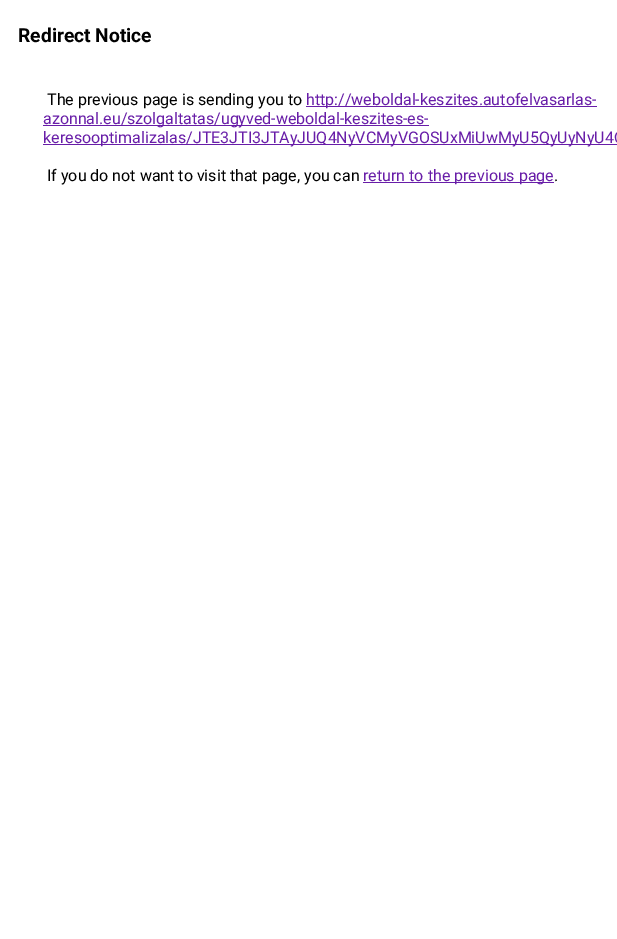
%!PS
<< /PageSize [617 939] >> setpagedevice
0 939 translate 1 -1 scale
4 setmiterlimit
1 setgray
0 0 617 939 rectfill
/Roboto-Bold [19.25 0 0 -19.25 0 0] selectfont
0 setgray
18 42 moveto (Redirect Notice) show
/Roboto-Regular [16 0 0 -16 0 0] selectfont
47 105 moveto (The previous page is sending you to) show
0.408 0.114 0.659 setrgbcolor
306 106 291 1 rectfill
306 105 moveto (http://weboldal-keszites.autofelvasarlas-) show
43 125 386 1 rectfill
43 124 moveto (azonnal.eu/szolgaltatas/ugyved-weboldal-keszites-es-) show
43 144 574 1 rectfill
43 143 moveto (keresooptimalizalas/JTE3JTI3JTAyJUQ4NyVCMyVGOSUxMiUwMyU5QyUyNyU4Q) show
0 setgray
47 181 moveto (If you do not want to visit that page, you can) show
0.408 0.114 0.659 setrgbcolor
363 182 191 1 rectfill
363 181 moveto (return to the previous page) show
0 setgray
554 181 moveto (.) show
showpage
